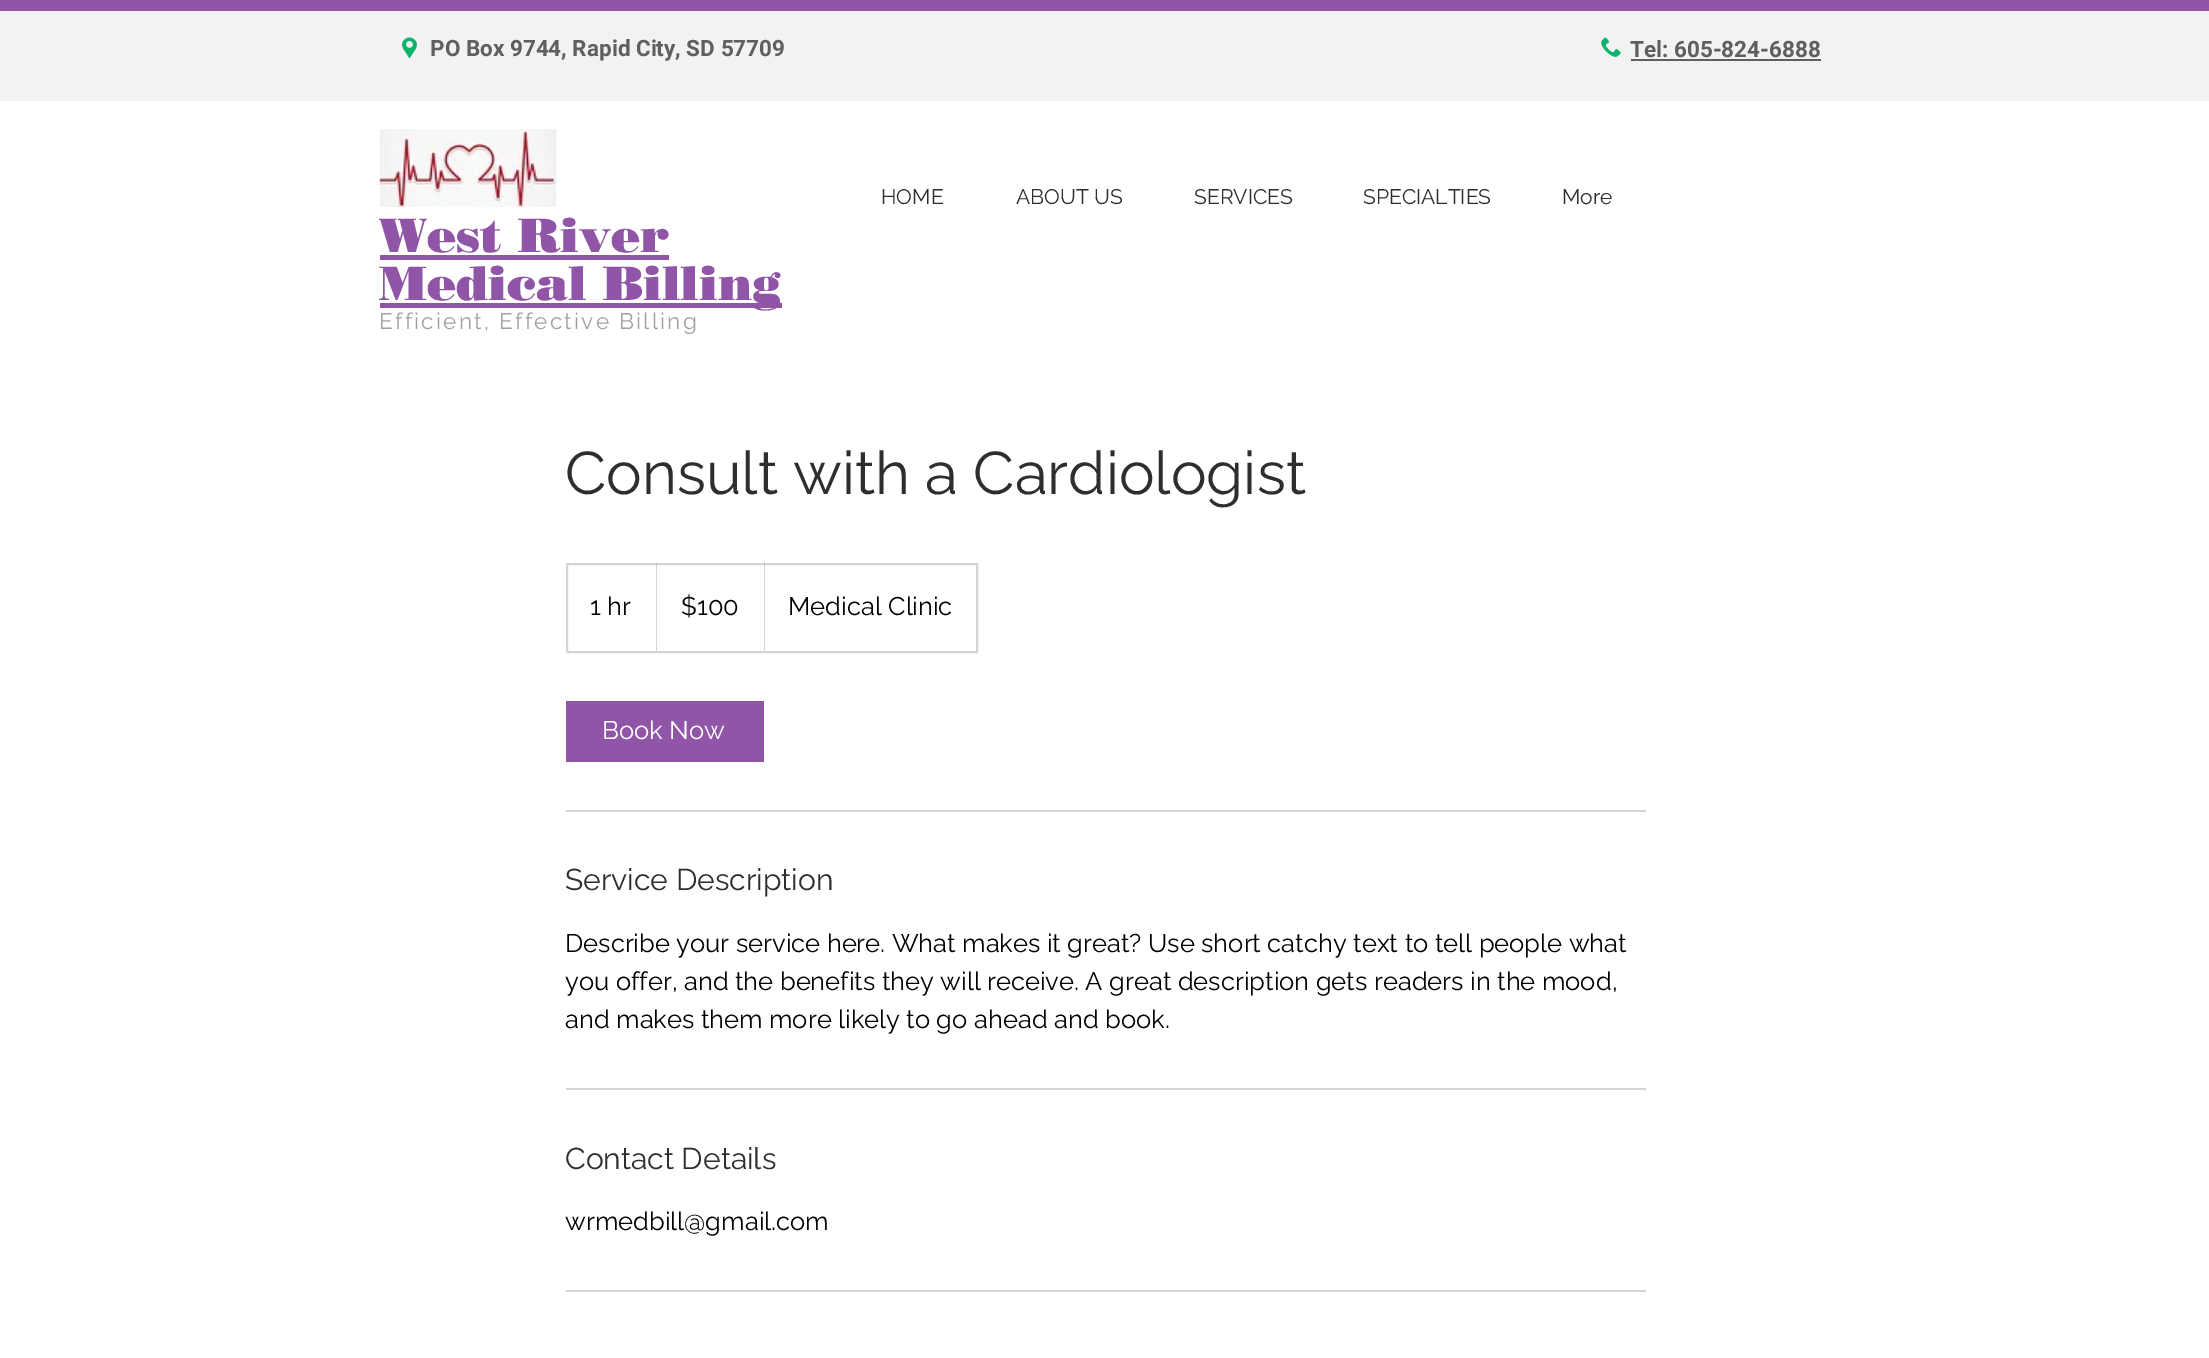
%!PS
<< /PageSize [2209 1358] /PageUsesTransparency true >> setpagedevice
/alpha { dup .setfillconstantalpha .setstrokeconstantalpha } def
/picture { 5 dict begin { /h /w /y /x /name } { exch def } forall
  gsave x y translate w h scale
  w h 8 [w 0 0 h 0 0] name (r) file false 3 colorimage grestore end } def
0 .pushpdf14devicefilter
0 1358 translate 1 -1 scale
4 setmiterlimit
1 setgray
0 0 2209 1358 rectfill
0.569 0.333 0.655 setrgbcolor
0 0 2209 11 rectfill
0.949 setgray
0 11 2209 90 rectfill
(img1.rgb) 402 37 15 22 picture
/Roboto-Bold [22.5 0 0 -22.5 0 0] selectfont
0.376 0.369 0.369 setrgbcolor
430 56 moveto (PO Box 9744, Rapid City, SD 57709) show
(img2.rgb) 1601 37 20 20 picture
1630 57 moveto (Tel: 605-824-6888) show
1631 59 190 2 rectfill
(img3.rgb) 379 129 178 78 picture
/Raleway-Regular [21 0 0 -21 0 0] selectfont
0.184 0.18 0.18 setrgbcolor
881 204 moveto (HOME) show
1016 204 moveto (ABOUT US) show
1194 204 moveto (SERVICES) show
1363 204 moveto (SPECIALTIES) show
1562 204 moveto (More) show
/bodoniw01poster-Black [48 0 0 -48 0 0] selectfont
0.569 0.333 0.655 setrgbcolor
379 252 moveto (West River) show
380 255 289 5 rectfill
380 303 402 5 rectfill
379 300 moveto (Medical Billing) show
/Raleway-Regular [22.5 0 0 -22.5 0 0] selectfont
0.627 0.627 0.624 setrgbcolor
379 329 moveto 2.25 0 (Efficient, Effective Billing) ashow
/Raleway-Regular [60 0 0 -60 0 0] selectfont
0.184 0.18 0.18 setrgbcolor
565 494 moveto (Consult with a Cardiologist) show
0.835 setgray
2 setlinewidth
567 564 410 88 rectstroke
/Raleway-Regular [25.5 0 0 -25.5 0 0] selectfont
0 setgray
590 615 moveto (1 hr) show
0.2 alpha
0.184 0.18 0.18 setrgbcolor
newpath 656 651 moveto 656 562 lineto 657 564 lineto 657 651 lineto closepath fill
1 alpha
0 setgray
681 615 moveto ($100) show
0.2 alpha
0.184 0.18 0.18 setrgbcolor
newpath 764 651 moveto 764 562 lineto 765 564 lineto 765 651 lineto closepath fill
1 alpha
0 setgray
788 615 moveto (Medical Clinic) show
0.569 0.333 0.655 setrgbcolor
566 701 198 61 rectfill
1 setgray
602 739 moveto (Book Now) show
0.835 setgray
566 810 1080 2 rectfill
/Raleway-Regular [30 0 0 -30 0 0] selectfont
0.184 0.18 0.18 setrgbcolor
565 890 moveto (Service Description) show
/Raleway-Regular [25.5 0 0 -25.5 0 0] selectfont
0 setgray
565 952 moveto (Describe your service here. What makes it great? Use short catchy text to tell people what) show
565 990 moveto (you offer, and the benefits they will receive. A great description gets readers in the mood,) show
565 1028 moveto (and makes them more likely to go ahead and book.) show
0.835 setgray
566 1088 1080 2 rectfill
/Raleway-Regular [30 0 0 -30 0 0] selectfont
0.184 0.18 0.18 setrgbcolor
565 1169 moveto (Contact Details) show
/Raleway-Regular [25.5 0 0 -25.5 0 0] selectfont
0 setgray
565 1230 moveto (wrmedbill@gmail.com) show
0.835 setgray
566 1290 1080 2 rectfill
.poppdf14devicefilter showpage
